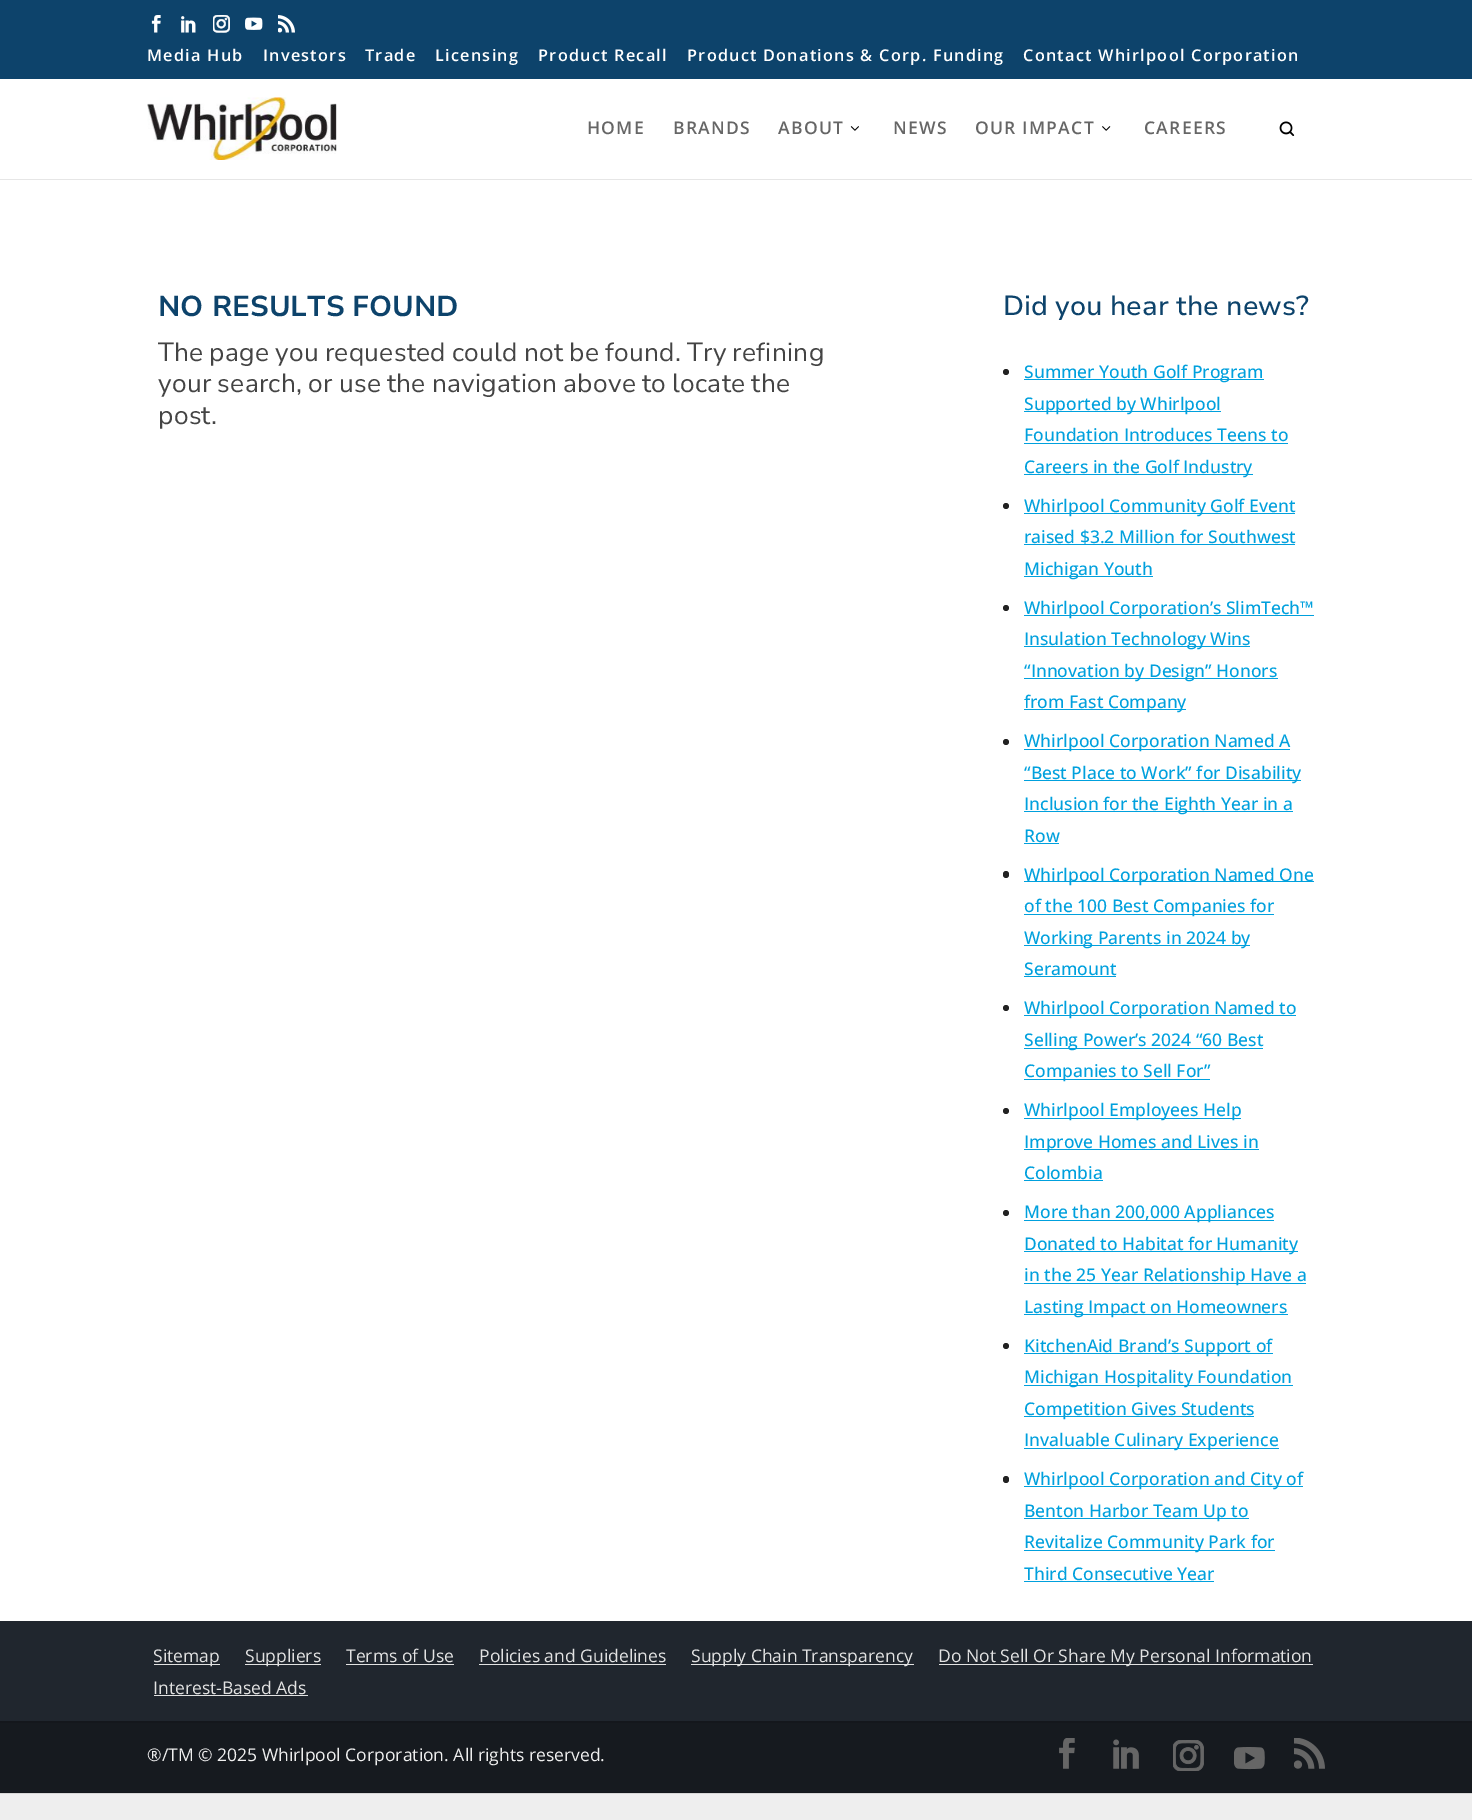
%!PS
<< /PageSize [1472 1820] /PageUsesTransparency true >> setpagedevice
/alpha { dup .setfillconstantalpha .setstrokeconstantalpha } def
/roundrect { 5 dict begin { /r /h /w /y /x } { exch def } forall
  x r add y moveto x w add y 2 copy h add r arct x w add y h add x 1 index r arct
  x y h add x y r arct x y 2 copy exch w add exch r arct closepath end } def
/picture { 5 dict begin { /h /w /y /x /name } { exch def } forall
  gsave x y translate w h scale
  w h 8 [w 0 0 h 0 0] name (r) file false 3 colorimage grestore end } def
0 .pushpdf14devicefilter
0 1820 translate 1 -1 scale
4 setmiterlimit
0.933 setgray
0 0 1472 1820 rectfill
1 setgray
0 79 1472 1542 rectfill
0.051 0.263 0.42 setrgbcolor
0 0 1472 79 rectfill
(img1.rgb) 151 15 10 18 picture
(img2.rgb) 181 16 15 17 picture
(img3.rgb) 213 15 17 18 picture
(img4.rgb) 245 17 18 13 picture
(img5.rgb) 278 15 17 18 picture
/OpenSans-SemiBold [16.25 0 0 -16.25 0 0] selectfont
1 setgray
147 61 moveto 1.25 0 (Media Hub) ashow
263 61 moveto 1.25 0 (Investors) ashow
365 61 moveto 1.25 0 (Trade) ashow
435 61 moveto 1.25 0 (Licensing) ashow
538 61 moveto 1.25 0 (Product Recall) ashow
687 61 moveto 1.25 0 (Product Donations & Corp. Funding) ashow
1023 61 moveto 1.25 0 (Contact Whirlpool Corporation) ashow
0.902 setgray
newpath 0 179 moveto 0 180 lineto 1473 180 lineto 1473 80 lineto 1472 80 lineto 1472 179 lineto closepath fill
(img6.rgb) 147 97 190 63 picture
/OpenSans-SemiBold [17.5 0 0 -17.5 0 0] selectfont
0.4 setgray
587 134 moveto 1.25 0 (HOME) ashow
673 134 moveto 1.25 0 (BRANDS) ashow
778 134 moveto 1.25 0 (ABOUT) ashow
(img7.rgb) 850 126 9 5 picture
893 134 moveto 1.25 0 (NEWS) ashow
975 134 moveto 1.25 0 (OUR IMPACT) ashow
(img8.rgb) 1102 126 9 5 picture
1144 134 moveto 1.25 0 (CAREERS) ashow
(img9.rgb) 1279 121 16 15 picture
/NunitoSans-Bold [28.75 0 0 -28.75 0 0] selectfont
0.051 0.263 0.42 setrgbcolor
158 316 moveto (NO RESULTS FOUND) show
/NunitoSans-Regular [26.25 0 0 -26.25 0 0] selectfont
0.267 setgray
158 361 moveto -1.25 0 32 0.32 0 (The page you requested could not be found. Try refining) awidthshow
158 392 moveto -1.25 0 32 0.32 0 (your search, or use the navigation above to locate the) awidthshow
158 424 moveto 0.32 0 (post.) ashow
/NunitoSans-Medium [27.5 0 0 -27.5 0 0] selectfont
0.051 0.263 0.42 setrgbcolor
1003 315 moveto (Did you hear the news?) show
0.133 setgray
newpath 1006 372 3 0 360 arc closepath fill
0 0.627 0.867 setrgbcolor
1024 379 240 1 rectfill
/OpenSans-Medium [17.5 0 0 -17.5 0 0] selectfont
1024 378 moveto (Summer Youth Golf Program) show
1024 411 197 1 rectfill
1024 410 moveto (Supported by Whirlpool) show
1024 441 moveto (Foundation Introduces Teens to) show
1024 443 264 1 rectfill
1024 474 229 1 rectfill
1024 473 moveto (Careers in the Golf Industry) show
0.133 setgray
newpath 1006 506 3 0 360 arc closepath fill
0 0.627 0.867 setrgbcolor
1024 513 271 1 rectfill
1024 512 moveto (Whirlpool Community Golf Event) show
1024 543 moveto (raised $3.2 Million for Southwest) show
1024 544 271 1 rectfill
1024 576 129 1 rectfill
1024 575 moveto (Michigan Youth) show
0.133 setgray
newpath 1006 608 3 0 360 arc closepath fill
0 0.627 0.867 setrgbcolor
1024 615 290 1 rectfill
1024 614 moveto (Whirlpool Corporation’s SlimTech™) show
1024 646 226 1 rectfill
1024 645 moveto (Insulation Technology Wins) show
1024 678 254 1 rectfill
1024 677 moveto (“Innovation by Design” Honors) show
1024 709 162 1 rectfill
1024 708 moveto (from Fast Company) show
0.133 setgray
newpath 1006 742 3 0 360 arc closepath fill
0 0.627 0.867 setrgbcolor
1024 749 266 1 rectfill
1024 747 moveto (Whirlpool Corporation Named A) show
1024 780 277 1 rectfill
1024 779 moveto (“Best Place to Work” for Disability) show
1024 811 269 1 rectfill
1024 810 moveto (Inclusion for the Eighth Year in a) show
1024 842 moveto (Row) show
1024 843 35 1 rectfill
0.133 setgray
1003 871 6 7 3 roundrect fill
0 0.627 0.867 setrgbcolor
1024 881 290 1 rectfill
1024 881 moveto (Whirlpool Corporation Named One) show
1024 914 250 1 rectfill
1024 912 moveto (of the 100 Best Companies for) show
1024 945 226 1 rectfill
1024 944 moveto (Working Parents in 2024 by) show
1024 975 moveto (Seramount) show
1024 976 92 1 rectfill
0.133 setgray
newpath 1006 1008 3 0 360 arc closepath fill
0 0.627 0.867 setrgbcolor
1024 1015 272 1 rectfill
1024 1014 moveto (Whirlpool Corporation Named to) show
1024 1048 239 1 rectfill
1024 1046 moveto (Selling Power’s 2024 “60 Best) show
1024 1079 186 1 rectfill
1024 1077 moveto (Companies to Sell For”) show
0.133 setgray
newpath 1006 1111 3 0 360 arc closepath fill
0 0.627 0.867 setrgbcolor
1024 1118 217 1 rectfill
1024 1116 moveto (Whirlpool Employees Help) show
1024 1149 235 1 rectfill
1024 1148 moveto (Improve Homes and Lives in) show
1024 1179 moveto (Colombia) show
1024 1180 79 1 rectfill
0.133 setgray
newpath 1006 1213 3 0 360 arc closepath fill
0 0.627 0.867 setrgbcolor
1024 1220 250 1 rectfill
1024 1218 moveto (More than 200,000 Appliances) show
1024 1251 274 1 rectfill
1024 1250 moveto (Donated to Habitat for Humanity) show
1024 1283 282 1 rectfill
1024 1281 moveto (in the 25 Year Relationship Have a) show
1024 1314 264 1 rectfill
1024 1313 moveto (Lasting Impact on Homeowners) show
0.133 setgray
newpath 1006 1346 3 0 360 arc closepath fill
0 0.627 0.867 setrgbcolor
1024 1353 249 1 rectfill
1024 1352 moveto (KitchenAid Brand’s Support of) show
1024 1385 269 1 rectfill
1024 1383 moveto (Michigan Hospitality Foundation) show
1024 1416 230 1 rectfill
1024 1415 moveto (Competition Gives Students) show
1024 1448 255 1 rectfill
1024 1446 moveto (Invaluable Culinary Experience) show
0.133 setgray
1003 1476 6 7 3 roundrect fill
0 0.627 0.867 setrgbcolor
1024 1486 279 1 rectfill
1024 1485 moveto (Whirlpool Corporation and City of) show
1024 1518 225 1 rectfill
1024 1517 moveto (Benton Harbor Team Up to) show
1024 1550 251 1 rectfill
1024 1548 moveto (Revitalize Community Park for) show
1024 1580 moveto (Third Consecutive Year) show
1024 1581 190 1 rectfill
0.125 0.149 0.18 setrgbcolor
0 1621 1472 100 rectfill
0.086 0.102 0.122 setrgbcolor
0 1723 1472 70 rectfill
0.078 0.09 0.11 setrgbcolor
newpath 0 1721 moveto 0 1723 lineto 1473 1723 lineto 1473 1623 lineto 1472 1623 lineto 1472 1721 lineto closepath fill
0.886 setgray
154 1664 66 1 rectfill
/OpenSans-Regular [17.5 0 0 -17.5 0 0] selectfont
153 1662 moveto (Sitemap) show
245 1664 76 1 rectfill
245 1662 moveto (Suppliers) show
346 1662 moveto (Terms of Use) show
346 1664 108 1 rectfill
479 1662 moveto (Policies and Guidelines) show
479 1664 187 1 rectfill
691 1664 223 1 rectfill
691 1662 moveto (Supply Chain Transparency) show
939 1664 374 1 rectfill
938 1662 moveto (Do Not Sell Or Share My Personal Information) show
153 1694 moveto (Interest-Based Ads) show
154 1695 154 1 rectfill
0.1 alpha
0 setgray
newpath 0 1792 moveto 0 1794 lineto 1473 1794 lineto 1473 1729 lineto 1472 1729 lineto 1472 1792 lineto closepath fill
1 alpha
0.937 setgray
147 1761 moveto (®/TM © 2025 Whirlpool Corporation. All rights reserved.) show
(img10.rgb) 1059 1738 16 31 picture
(img11.rgb) 1113 1739 26 30 picture
(img12.rgb) 1173 1740 31 31 picture
(img13.rgb) 1234 1747 31 23 picture
(img14.rgb) 1294 1738 31 31 picture
.poppdf14devicefilter showpage
